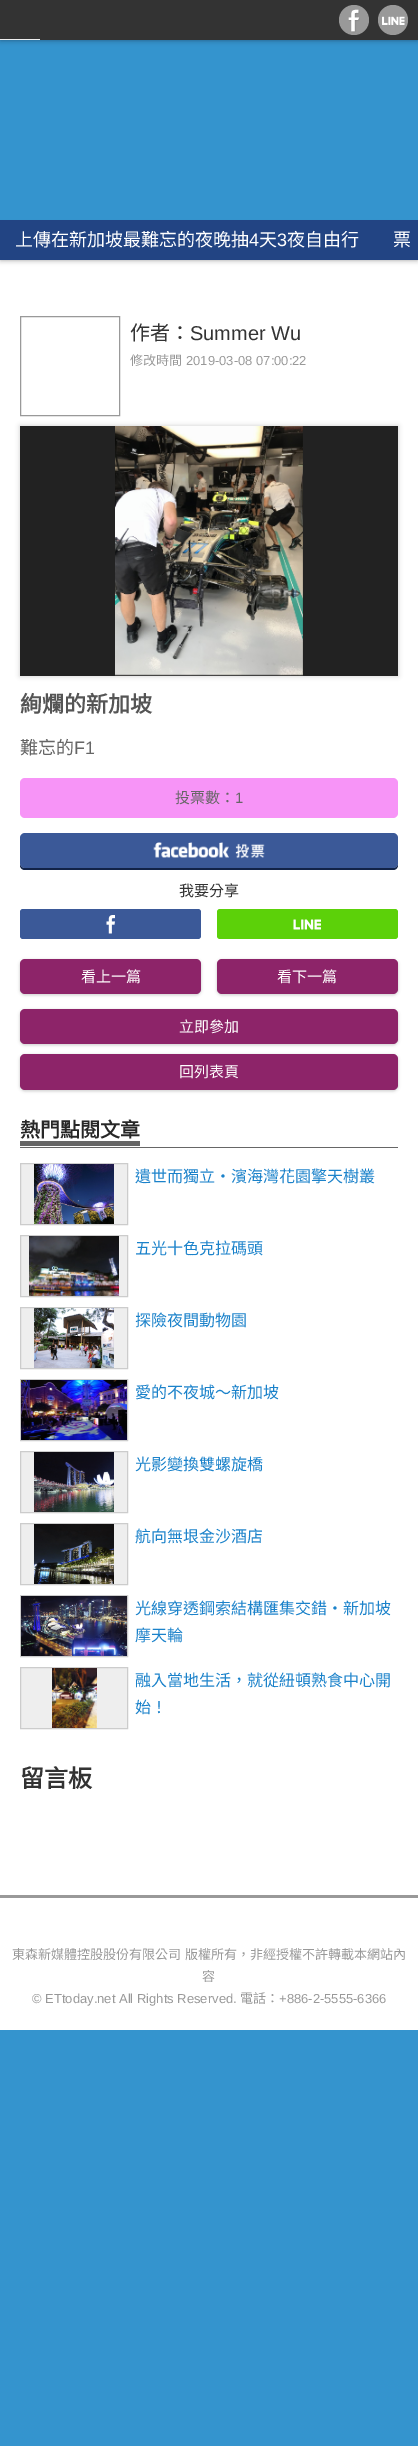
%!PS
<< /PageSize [418 2446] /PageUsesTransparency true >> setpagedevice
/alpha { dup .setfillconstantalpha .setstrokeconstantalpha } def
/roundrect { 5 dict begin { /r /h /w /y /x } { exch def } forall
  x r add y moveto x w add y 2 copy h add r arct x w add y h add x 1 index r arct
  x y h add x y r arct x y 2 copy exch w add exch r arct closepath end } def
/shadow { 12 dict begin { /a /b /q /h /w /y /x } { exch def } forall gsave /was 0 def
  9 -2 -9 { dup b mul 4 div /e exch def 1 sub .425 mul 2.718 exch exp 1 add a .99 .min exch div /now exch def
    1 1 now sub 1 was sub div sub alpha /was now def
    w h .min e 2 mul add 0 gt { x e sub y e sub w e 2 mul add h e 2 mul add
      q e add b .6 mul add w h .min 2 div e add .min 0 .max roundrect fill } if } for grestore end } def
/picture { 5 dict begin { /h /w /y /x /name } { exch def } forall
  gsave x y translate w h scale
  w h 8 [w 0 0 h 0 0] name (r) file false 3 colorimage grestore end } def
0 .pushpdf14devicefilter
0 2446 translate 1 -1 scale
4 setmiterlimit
0.204 0.58 0.808 setrgbcolor
0 0 418 2446 rectfill
0 setgray
0 1 418 40 0 0.5 0.1 shadow
0 3 418 40 0 1.5 0.1 shadow
0.2 setgray
0 0 418 40 rectfill
0.6 setgray
newpath 354 20 15 0 360 arc closepath fill
(img1.rgb) 348 9 12 24 picture
newpath 393 20 15 0 360 arc closepath fill
(img2.rgb) 382 16 23 9 picture
0.933 setgray
0 39 40 1 rectfill
1 setgray
0 260 418 1635 rectfill
0 setgray
0 221 418 40 0 0.5 0.1 shadow
0 223 418 40 0 1.5 0.1 shadow
0.133 0.267 0.514 setrgbcolor
0 220 418 40 rectfill
/NotoSansCJKTC-Regular [18 0 0 -18 0 0] selectfont
1 setgray
15 246 moveto (上傳在新加坡最難忘的夜晚抽) show
/LiberationSans-Regular [18 0 0 -18 0 0] selectfont
249 246 moveto (4) show
/NotoSansCJKTC-Regular [18 0 0 -18 0 0] selectfont
259 246 moveto (天) show
/LiberationSans-Regular [18 0 0 -18 0 0] selectfont
277 246 moveto (3) show
/NotoSansCJKTC-Regular [18 0 0 -18 0 0] selectfont
287 246 moveto (夜自由行) show
393 246 moveto 1 0 32 (票) widthshow
0.6 setgray
20.5 316.5 99 99 rectstroke
/NotoSansCJKTC-Regular [20 0 0 -20 0 0] selectfont
0.2 setgray
130 340 moveto (作者：) show
/LiberationSans-Regular [20 0 0 -20 0 0] selectfont
190 340 moveto (Summer Wu) show
/NotoSansCJKTC-Regular [13 0 0 -13 0 0] selectfont
0.6 setgray
130 365 moveto (修改時間) show
/LiberationSans-Regular [13 0 0 -13 0 0] selectfont
186 365 moveto (2019-03-08 07:00:22) show
0.8 setgray
20 426 378 250 0 2.5 1 shadow
0.133 setgray
20 426 378 250 rectfill
(img3.rgb) 115 426 188 250 picture
/NotoSansCJKTC-Bold [22 0 0 -22 0 0] selectfont
0.333 setgray
20 712 moveto (絢爛的新加坡) show
/NotoSansCJKTC-Regular [18 0 0 -18 0 0] selectfont
0.4 setgray
20 754 moveto (難忘的) show
/LiberationSans-Regular [18 0 0 -18 0 0] selectfont
74 754 moveto (F1) show
0.969 0.58 0.969 setrgbcolor
20 778 378 40 5 roundrect fill
/NotoSansCJKTC-Regular [15 0 0 -15 0 0] selectfont
0.4 setgray
175 803 moveto (投票數：) show
/LiberationSans-Regular [15 0 0 -15 0 0] selectfont
235 803 moveto (1) show
0.071 0.137 0.282 setrgbcolor
newpath 20 863 moveto 20 865 lineto 20 868 22 870 25 870 curveto 393 870 lineto 396 870 398 868 398 865 curveto 398 863 lineto 398 866 396 868 393 868 curveto 25 868 lineto 22 868 20 866 20 863 curveto closepath fill
0.231 0.349 0.596 setrgbcolor
20 833 378 35 5 roundrect fill
(img4.rgb) 153 842 112 17 picture
/NotoSansCJKTC-Regular [15 0 0 -15 0 0] selectfont
0.2 setgray
179 896 moveto (我要分享) show
0.231 0.349 0.596 setrgbcolor
20 909 181 30 3 roundrect fill
(img5.rgb) 106 915 9 19 picture
0.361 0.82 0.035 setrgbcolor
217 909 181 30 3 roundrect fill
(img6.rgb) 293 919 28 11 picture
0 setgray
20 960 181 35 5 1.5 0.2 shadow
0.553 0.141 0.412 setrgbcolor
20 959 181 35 5 roundrect fill
1 setgray
81 982 moveto (看上一篇) show
0 setgray
217 960 181 35 5 1.5 0.2 shadow
0.553 0.141 0.412 setrgbcolor
217 959 181 35 5 roundrect fill
1 setgray
277 982 moveto (看下一篇) show
0 setgray
20 1010 378 35 5 1.5 0.2 shadow
0.553 0.141 0.412 setrgbcolor
20 1009 378 35 5 roundrect fill
1 setgray
179 1032 moveto (立即參加) show
0 setgray
20 1055 378 36 5 1.5 0.2 shadow
0.553 0.141 0.412 setrgbcolor
20 1054 378 36 5 roundrect fill
1 setgray
179 1077 moveto (回列表頁) show
0.4 setgray
20 1147 378 1 rectfill
/NotoSansCJKTC-Bold [20 0 0 -20 0 0] selectfont
0.153 setgray
20 1137 moveto (熱門點閱文章) show
0.4 setgray
20 1141 120 5 rectfill
0.933 setgray
newpath 20.5 1163.5 moveto 127.5 1163.5 lineto 127.5 1224.5 lineto 20.5 1224.5 lineto closepath gsave fill grestore
0.8 setgray
stroke
(img7.rgb) 34 1164 80 60 picture
/NotoSansCJKTC-Regular [16 0 0 -16 0 0] selectfont
0.106 0.51 0.792 setrgbcolor
135 1182 moveto (遺世而獨立‧濱海灣花園擎天樹叢) show
0.933 setgray
newpath 20.5 1235.5 moveto 127.5 1235.5 lineto 127.5 1296.5 lineto 20.5 1296.5 lineto closepath gsave fill grestore
0.8 setgray
stroke
(img8.rgb) 29 1236 90 60 picture
0.106 0.51 0.792 setrgbcolor
135 1254 moveto (五光十色克拉碼頭) show
0.933 setgray
newpath 20.5 1307.5 moveto 127.5 1307.5 lineto 127.5 1368.5 lineto 20.5 1368.5 lineto closepath gsave fill grestore
0.8 setgray
stroke
(img9.rgb) 34 1308 80 60 picture
0.106 0.51 0.792 setrgbcolor
135 1326 moveto (探險夜間動物園) show
0.8 setgray
20.5 1379.5 107 61 rectstroke
(img10.rgb) 21 1380 106 60 picture
0.106 0.51 0.792 setrgbcolor
135 1398 moveto (愛的不夜城～新加坡) show
0.933 setgray
newpath 20.5 1451.5 moveto 127.5 1451.5 lineto 127.5 1512.5 lineto 20.5 1512.5 lineto closepath gsave fill grestore
0.8 setgray
stroke
(img11.rgb) 34 1452 80 60 picture
0.106 0.51 0.792 setrgbcolor
135 1470 moveto (光影變換雙螺旋橋) show
0.933 setgray
newpath 20.5 1523.5 moveto 127.5 1523.5 lineto 127.5 1584.5 lineto 20.5 1584.5 lineto closepath gsave fill grestore
0.8 setgray
stroke
(img12.rgb) 34 1524 80 60 picture
0.106 0.51 0.792 setrgbcolor
135 1542 moveto (航向無垠金沙酒店) show
0.8 setgray
20.5 1595.5 107 61 rectstroke
(img13.rgb) 21 1596 106 60 picture
0.106 0.51 0.792 setrgbcolor
135 1614 moveto (光線穿透鋼索結構匯集交錯‧新加坡) show
135 1641 moveto (摩天輪) show
0.933 setgray
newpath 20.5 1667.5 moveto 127.5 1667.5 lineto 127.5 1728.5 lineto 20.5 1728.5 lineto closepath gsave fill grestore
0.8 setgray
stroke
(img14.rgb) 52 1668 45 60 picture
0.106 0.51 0.792 setrgbcolor
135 1686 moveto (融入當地生活，就從紐頓熟食中心開) show
135 1713 moveto (始！) show
/NotoSansCJKTC-Bold [24 0 0 -24 0 0] selectfont
0.2 setgray
20 1787 moveto (留言板) show
1 setgray
0 1898 418 132 rectfill
0.6 setgray
0 1895 418 3 rectfill
/NotoSansCJKTC-Regular [13 0 0 -13 0 0] selectfont
12 1959 moveto 1 0 32 (東森新媒體控股股份有限公司 版權所有，非經授權不許轉載本網站內) widthshow
202 1981 moveto (容) show
/LiberationSans-Regular [13 0 0 -13 0 0] selectfont
32 2003 moveto (© ETtoday.net All Rights Reserved.) show
/NotoSansCJKTC-Regular [13 0 0 -13 0 0] selectfont
240 2003 moveto (電話：) show
/LiberationSans-Regular [13 0 0 -13 0 0] selectfont
279 2003 moveto (+886-2-5555-6366) show
.poppdf14devicefilter showpage
